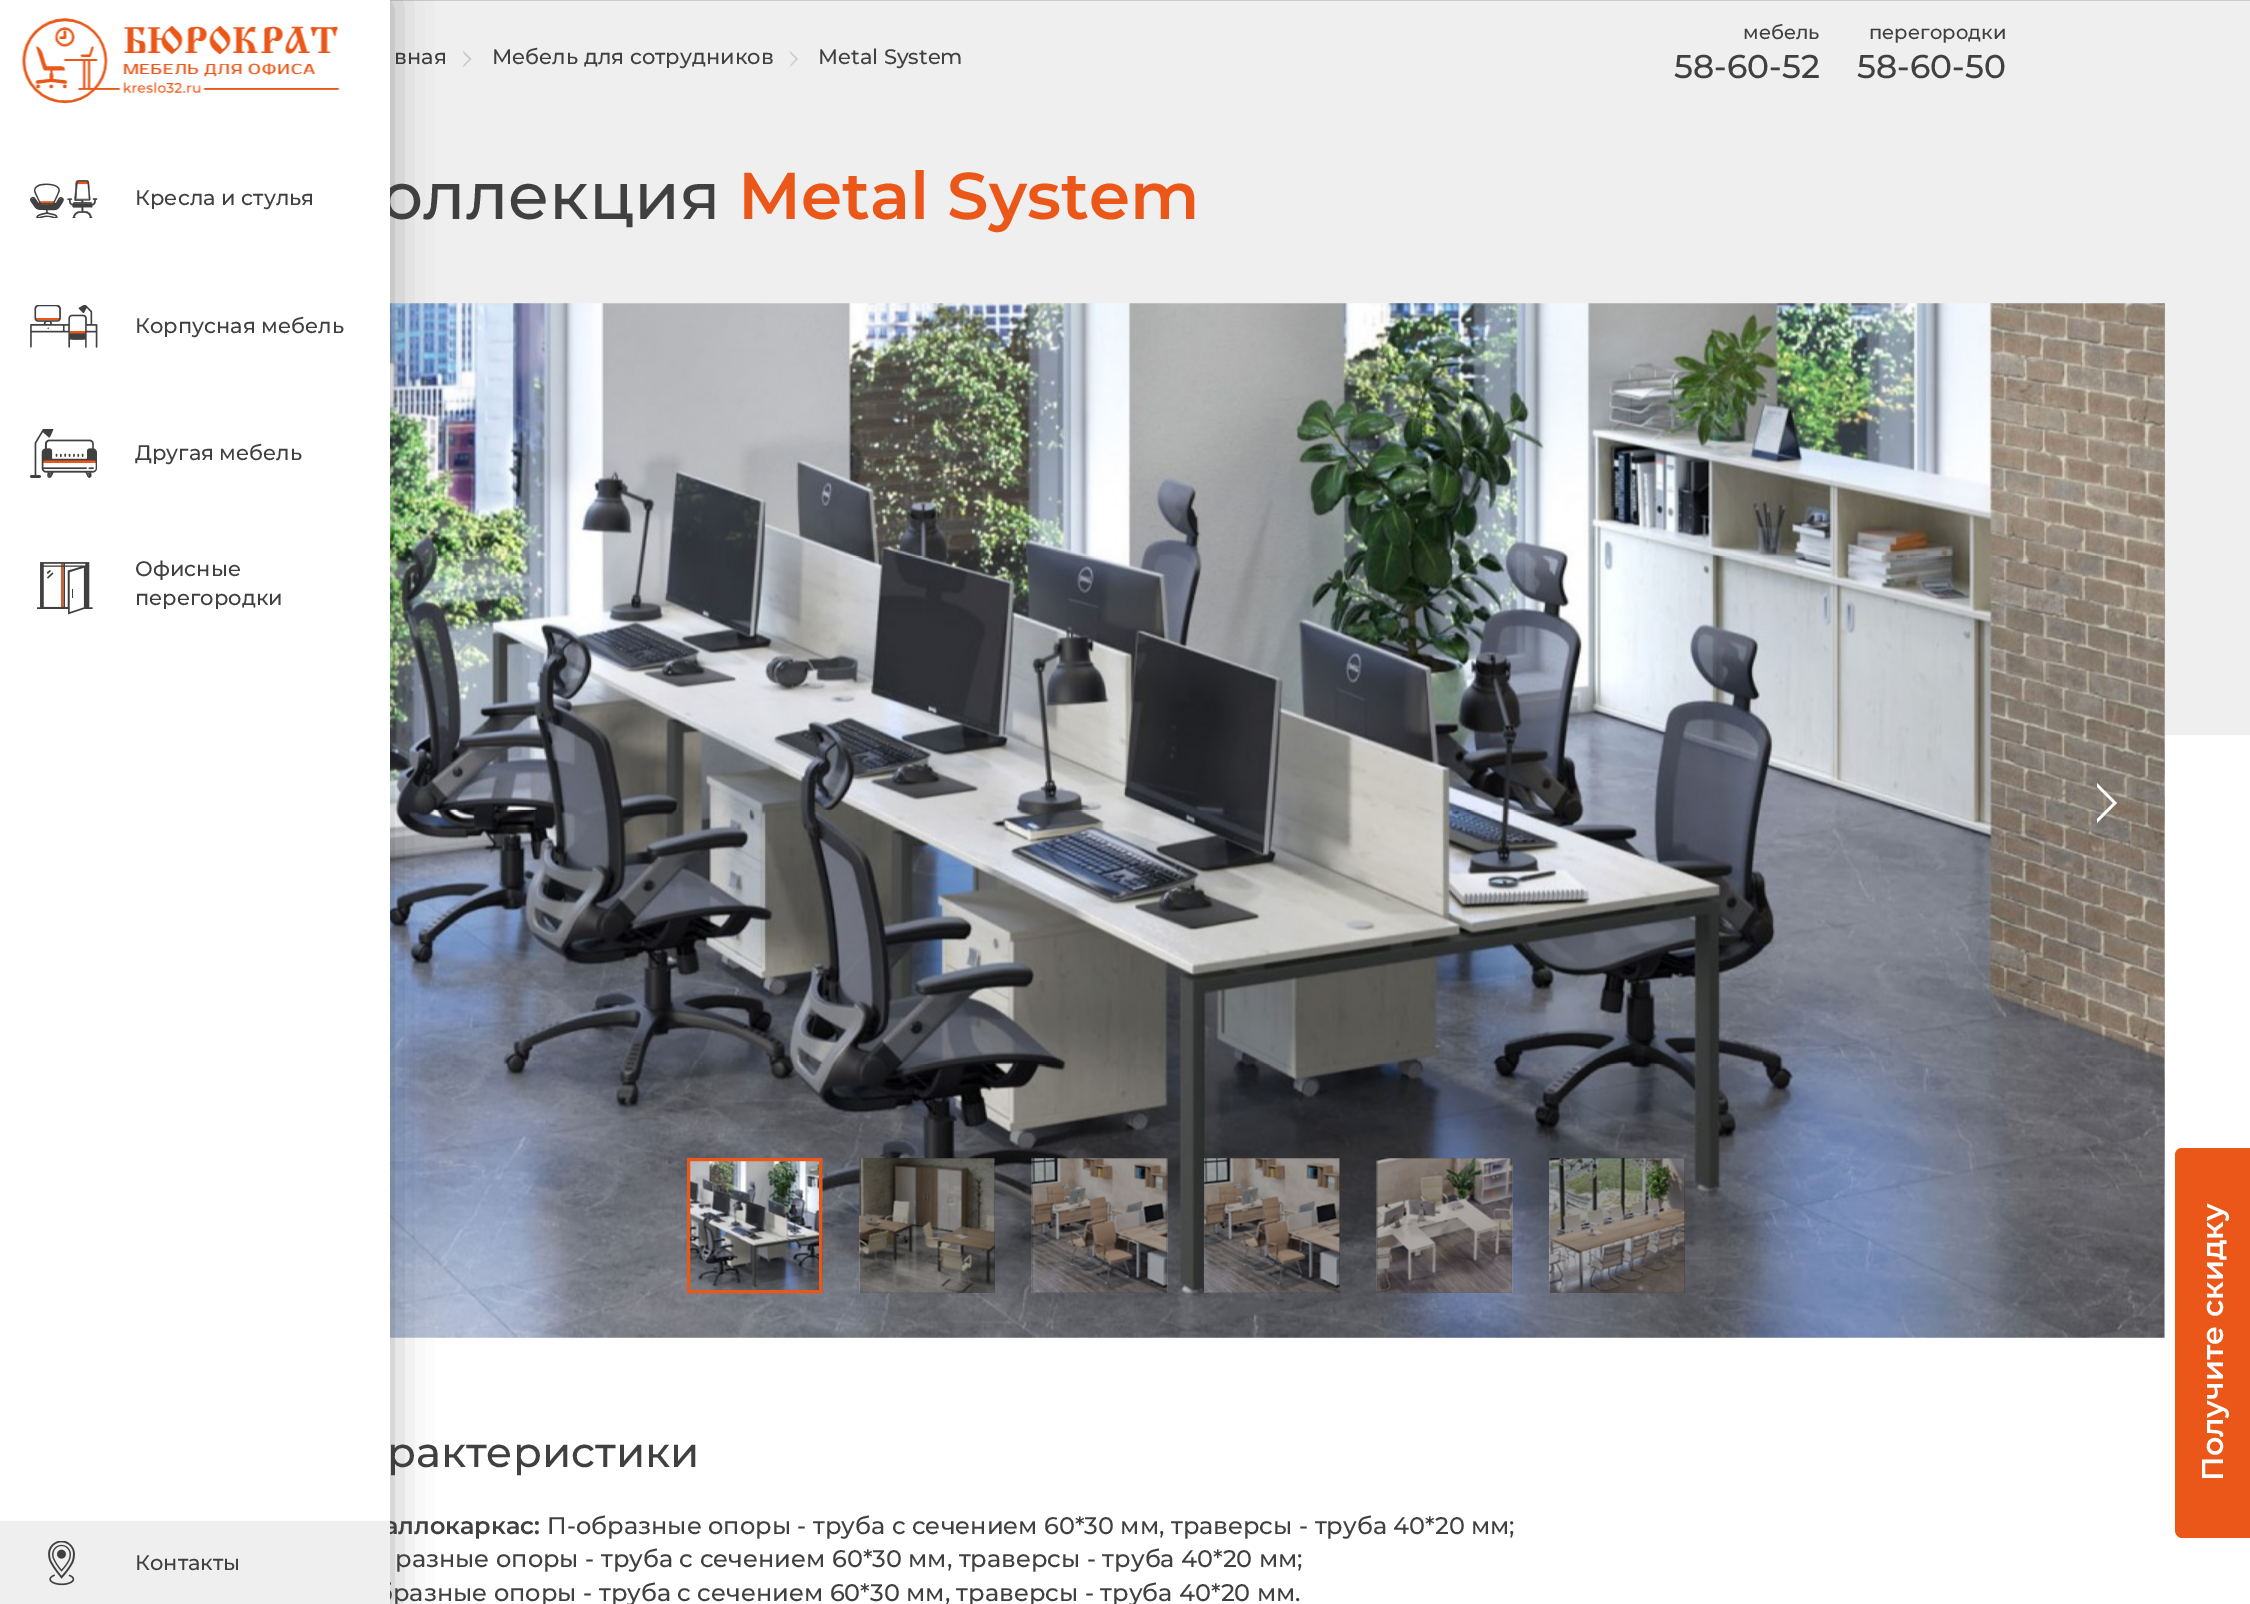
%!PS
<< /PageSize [2250 1604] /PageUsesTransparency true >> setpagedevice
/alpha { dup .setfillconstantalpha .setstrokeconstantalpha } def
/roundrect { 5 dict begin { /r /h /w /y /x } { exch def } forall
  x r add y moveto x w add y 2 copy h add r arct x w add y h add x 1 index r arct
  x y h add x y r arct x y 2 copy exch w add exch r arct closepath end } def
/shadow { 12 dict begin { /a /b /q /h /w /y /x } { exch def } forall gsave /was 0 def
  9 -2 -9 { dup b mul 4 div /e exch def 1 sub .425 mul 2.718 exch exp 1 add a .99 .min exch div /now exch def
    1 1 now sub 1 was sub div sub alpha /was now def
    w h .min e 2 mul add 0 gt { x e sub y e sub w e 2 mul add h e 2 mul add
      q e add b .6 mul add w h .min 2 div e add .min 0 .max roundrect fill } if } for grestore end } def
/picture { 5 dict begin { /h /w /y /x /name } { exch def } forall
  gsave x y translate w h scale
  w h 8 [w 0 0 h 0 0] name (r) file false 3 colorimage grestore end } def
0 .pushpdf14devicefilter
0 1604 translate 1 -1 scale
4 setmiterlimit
1 setgray
0 0 2250 1604 rectfill
0.937 setgray
390 1 1860 734 rectfill
/Montserrat-Medium [21 0 0 -21 0 0] selectfont
0.251 0.251 0.255 setrgbcolor
394 64 moveto (вная) show
0.792 setgray
newpath 463 50.5 moveto 471.5 59 lineto 469.5 59 lineto 464 54 lineto closepath 471.5 59 moveto 463 67.5 lineto 464 64.5 lineto 469.5 59 lineto closepath fill
0.251 0.251 0.255 setrgbcolor
492 64 moveto (Мебель для сотрудников) show
0.792 setgray
newpath 789.5 50.5 moveto 798 59 lineto 796 59 lineto 791 54 lineto closepath 798 59 moveto 789.5 67.5 lineto 791 64.5 lineto 796 59 lineto closepath fill
0.251 0.251 0.255 setrgbcolor
818 64 moveto (Metal System) show
/Montserrat-Medium [19.5 0 0 -19.5 0 0] selectfont
1743 39 moveto (мебель) show
/Montserrat-Medium [33 0 0 -33 0 0] selectfont
1674 78 moveto (58-60-52) show
/Montserrat-Medium [19.5 0 0 -19.5 0 0] selectfont
1869 39 moveto (перегородки) show
/Montserrat-Medium [33 0 0 -33 0 0] selectfont
1857 78 moveto (58-60-50) show
0.792 setgray
390 0 1860 1 rectfill
(img7.rgb) 390 303 1775 1035 picture
0 setgray
0 0 390 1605 0 20 0.32 shadow
/Montserrat-Medium [66 0 0 -66 0 0] selectfont
0.251 0.251 0.255 setrgbcolor
381 219 moveto (оллекция) show
1 setgray
0 0 390 1521 rectfill
(img1.rgb) 22 18 318 86 picture
(img2.rgb) 30 180 68 38 picture
/Montserrat-Medium [21 0 0 -21 0 0] selectfont
0.251 0.251 0.255 setrgbcolor
135 205 moveto (Кресла и стулья) show
(img3.rgb) 30 305 68 43 picture
135 333 moveto (Корпусная мебель) show
(img4.rgb) 30 429 67 49 picture
135 460 moveto (Другая мебель) show
(img5.rgb) 37 562 56 53 picture
135 576 moveto (Офисные) show
135 605 moveto (перегородки) show
/Montserrat-SemiBold [24 0 0 -24 0 0] selectfont
384 1534 moveto (аллокаркас:) show
/Montserrat-Medium [24 0 0 -24 0 0] selectfont
377 1601 moveto (бразные опоры - труба с сечением 60*30 мм, траверсы - труба 40*20 мм.) show
0.937 setgray
0 1521 390 83 rectfill
(img6.rgb) 48 1541 27 45 picture
/Montserrat-Medium [21 0 0 -21 0 0] selectfont
0.251 0.251 0.255 setrgbcolor
135 1570 moveto (Контакты) show
/Montserrat-SemiBold [66 0 0 -66 0 0] selectfont
0.918 0.341 0.094 setrgbcolor
738 219 moveto (Metal System) show
(img8.rgb) 2164 303 1 1035 picture
1 setgray
newpath 2097 783 moveto 2117 803 lineto 2113 803 lineto 2097 787 lineto closepath 2117 803 moveto 2097 823 lineto 2097 819 lineto 2113 803 lineto closepath fill
(img9.rgb) 690 1158 133 135 picture
0.918 0.341 0.094 setrgbcolor
3 setlinewidth
688.5 1159.5 132 132 rectstroke
(img10.rgb) 859 1158 136 135 picture
0.3 alpha
0 setgray
860 1158 135 135 rectfill
1 alpha
(img11.rgb) 1031 1158 137 135 picture
0.3 alpha
1032 1158 135 135 rectfill
1 alpha
(img12.rgb) 1204 1158 136 135 picture
0.3 alpha
1205 1158 135 135 rectfill
1 alpha
(img13.rgb) 1376 1158 137 135 picture
0.3 alpha
1377 1158 135 135 rectfill
1 alpha
(img14.rgb) 1549 1158 136 135 picture
0.3 alpha
1550 1158 135 135 rectfill
/Montserrat-Medium [42 0 0 -42 0 0] selectfont
1 alpha
0.251 0.251 0.255 setrgbcolor
387 1467 moveto (рактеристики) show
/Montserrat-Medium [24 0 0 -24 0 0] selectfont
547 1534 moveto (П-образные опоры - труба с сечением 60*30 мм, траверсы - труба 40*20 мм;) show
395 1567 moveto (разные опоры - труба с сечением 60*30 мм, траверсы - труба 40*20 мм;) show
0.918 0.341 0.094 setrgbcolor
newpath 2175 1530 moveto 2175 1155 lineto 2175 1151 2178 1148 2182 1148 curveto 2250 1148 lineto 2250 1538 lineto 2182 1538 lineto 2178 1538 2175 1534 2175 1530 curveto closepath fill
/Montserrat-SemiBold [30 0 0 -30 0 0] selectfont
1 setgray
gsave 2223 1481 translate -90 rotate 0 0 moveto (Получите скидку) show grestore
.poppdf14devicefilter showpage
